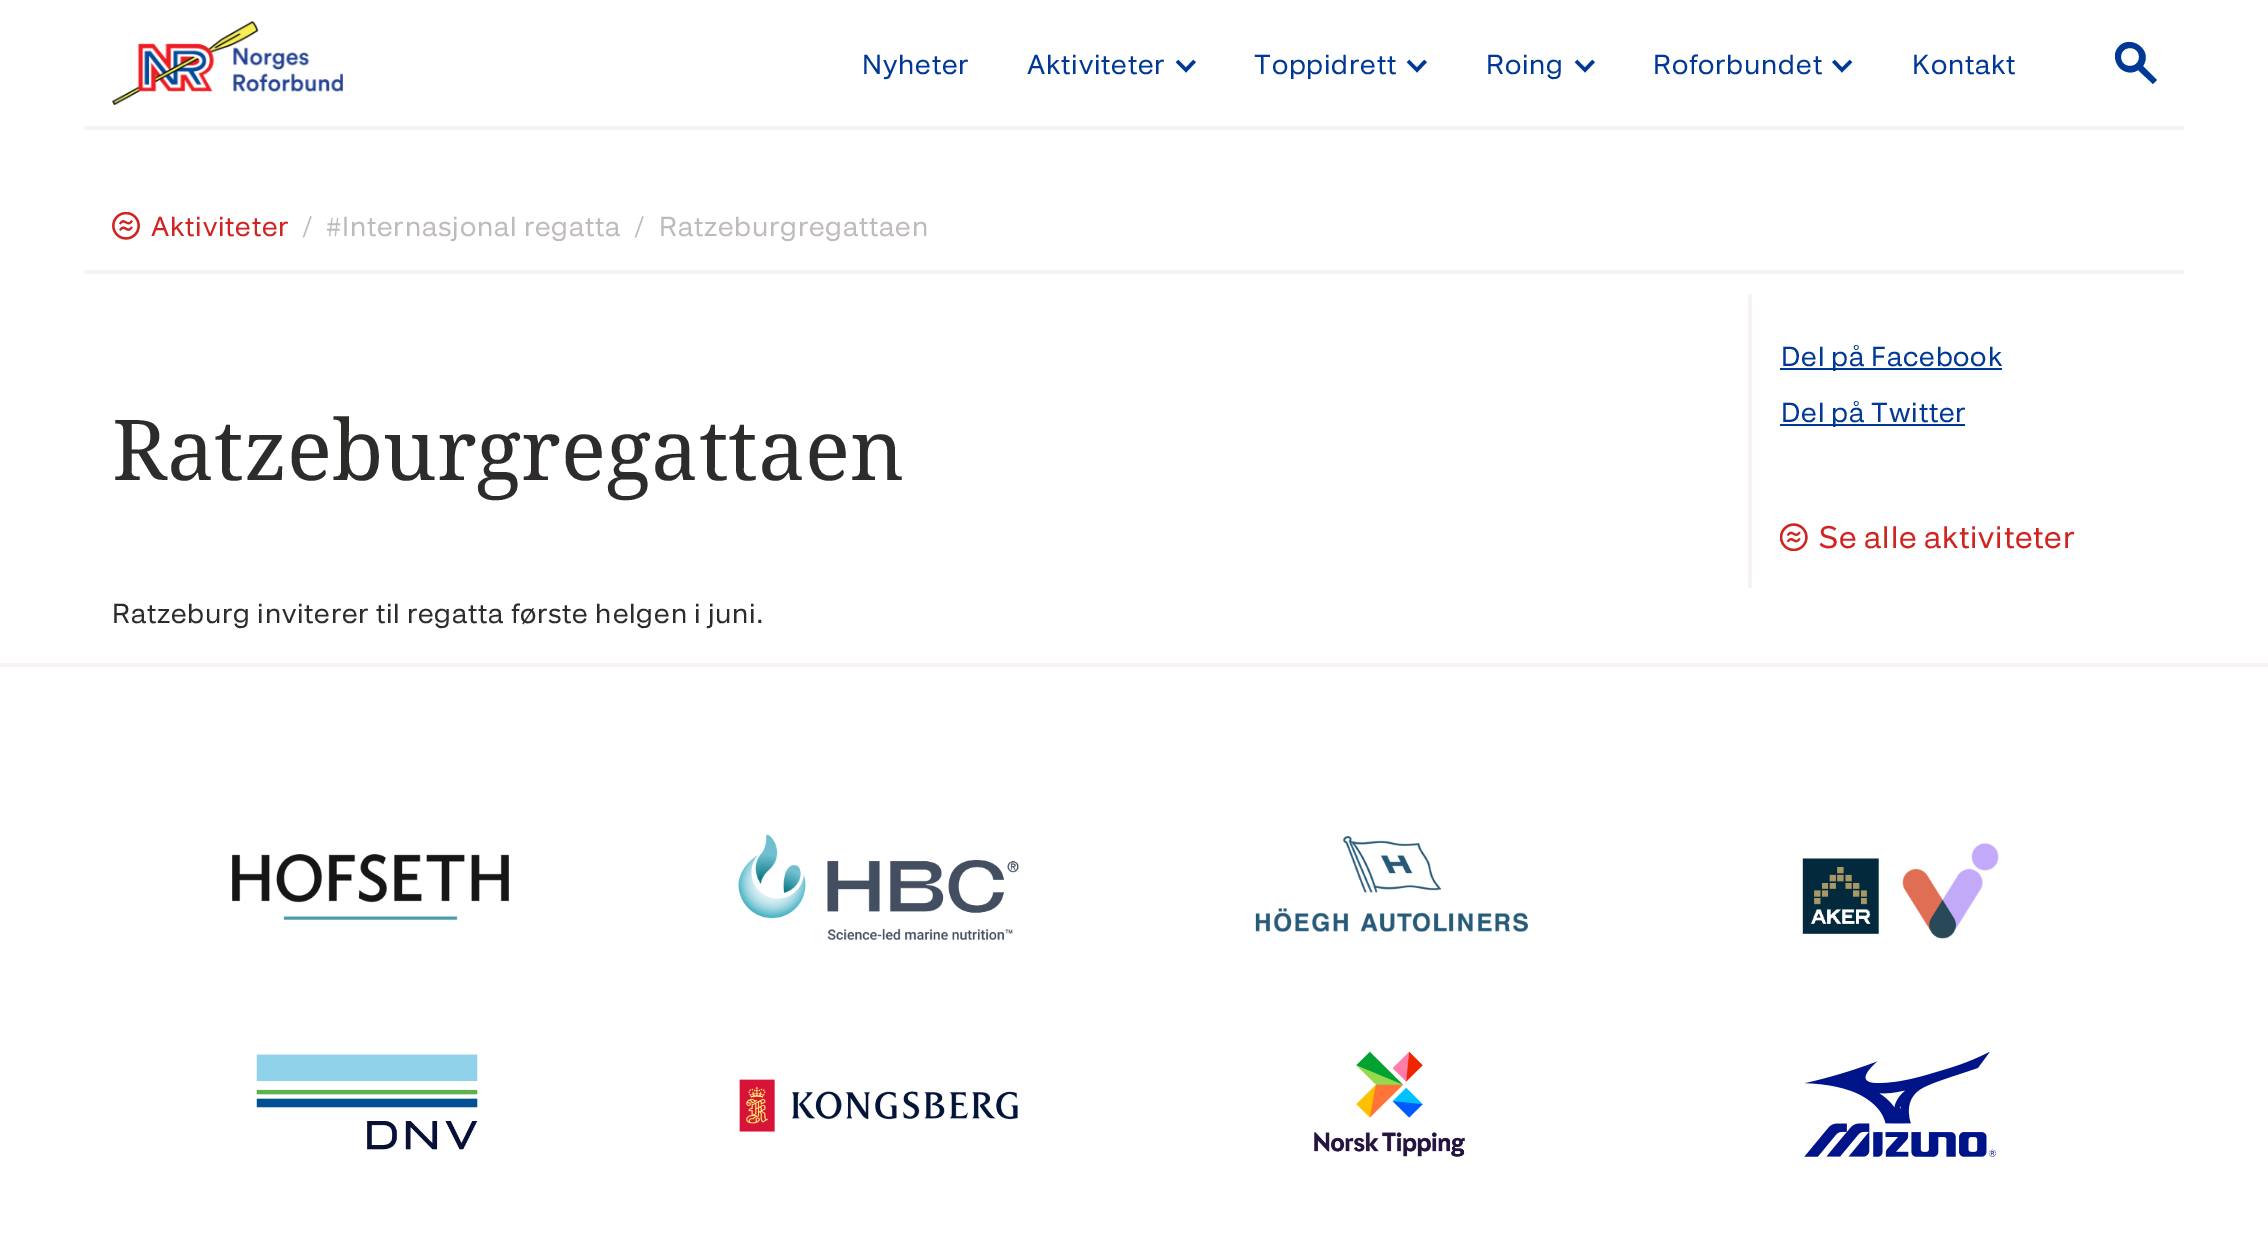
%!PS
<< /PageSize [2268 1258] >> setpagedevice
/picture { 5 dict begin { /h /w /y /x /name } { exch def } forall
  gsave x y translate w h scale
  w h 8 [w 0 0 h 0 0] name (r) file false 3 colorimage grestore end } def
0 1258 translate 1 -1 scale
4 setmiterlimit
1 setgray
0 0 2268 1258 rectfill
0.973 0.953 0.941 setrgbcolor
84 126 2100 4 rectfill
(img1.rgb) 112 21 231 84 picture
/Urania-Regular [28 0 0 -28 0 0] selectfont
0 0.22 0.584 setrgbcolor
862 74 moveto 0.88 0 (Nyheter) ashow
1027 74 moveto 0.88 0 (Aktiviteter) ashow
3.5 setlinewidth
newpath 1177 61 moveto 1186 70 lineto 1194.5 61 lineto stroke
1254 74 moveto 0.88 0 (Toppidrett) ashow
newpath 1408 61 moveto 1417 70 lineto 1425.5 61 lineto stroke
1486 74 moveto 0.88 0 (Roing) ashow
newpath 1576 61 moveto 1585 70 lineto 1593.5 61 lineto stroke
1653 74 moveto 0.88 0 (Roforbundet) ashow
newpath 1833.5 61 moveto 1842 70 lineto 1851 61 lineto stroke
1912 74 moveto 0.88 0 (Kontakt) ashow
newpath 2157 80 moveto 2143 66 lineto 2155 48 2125 31 2116 51 curveto 2114 55 2115 60 2117 64 curveto 2121 72 2131 75 2138 70 curveto 2153 84 lineto closepath 2121 57 moveto 2121 45 2139 45 2139 57 curveto 2139 69 2121 69 2121 57 curveto closepath fill
0.973 0.953 0.941 setrgbcolor
84 270 2100 4 rectfill
(img2.rgb) 112 212 28 28 picture
0.82 0.141 0.125 setrgbcolor
151 236 moveto 0.88 0 (Aktiviteter) ashow
0.749 0.733 0.729 setrgbcolor
303 236 moveto 0.88 0 (/) ashow
326 236 moveto 0.88 0 (#Internasjonal regatta) ashow
635 236 moveto 0.88 0 (/) ashow
659 236 moveto 0.88 0 (Ratzeburgregattaen) ashow
/DroidSerif-Regular [84 0 0 -84 0 0] selectfont
0.176 0.173 0.169 setrgbcolor
112 480 moveto (Ratzeburgregattaen) show
/Urania-Regular [28 0 0 -28 0 0] selectfont
112 623 moveto 0.88 0 (Ratzeburg inviterer til regatta første helgen i juni.) ashow
0.973 0.953 0.941 setrgbcolor
1748 294 4 294 rectfill
0 0.22 0.584 setrgbcolor
1780 368 222 2 rectfill
1781 366 moveto 0.88 0 (Del på Facebook) ashow
1780 424 185 2 rectfill
1781 422 moveto 0.88 0 (Del på Twitter) ashow
(img3.rgb) 1780 523 28 28 picture
/Urania-Regular [31.5 0 0 -31.5 0 0] selectfont
0.82 0.141 0.125 setrgbcolor
1819 548 moveto 0.88 0 (Se alle aktiviteter) ashow
0.973 0.953 0.941 setrgbcolor
0 663 2268 4 rectfill
(img4.rgb) 232 854 277 66 picture
(img5.rgb) 738 834 281 106 picture
(img6.rgb) 1255 836 273 96 picture
(img7.rgb) 1802 843 197 96 picture
(img8.rgb) 256 1054 222 96 picture
(img9.rgb) 739 1079 279 53 picture
(img10.rgb) 1314 1051 151 106 picture
(img11.rgb) 1804 1052 192 105 picture
showpage
